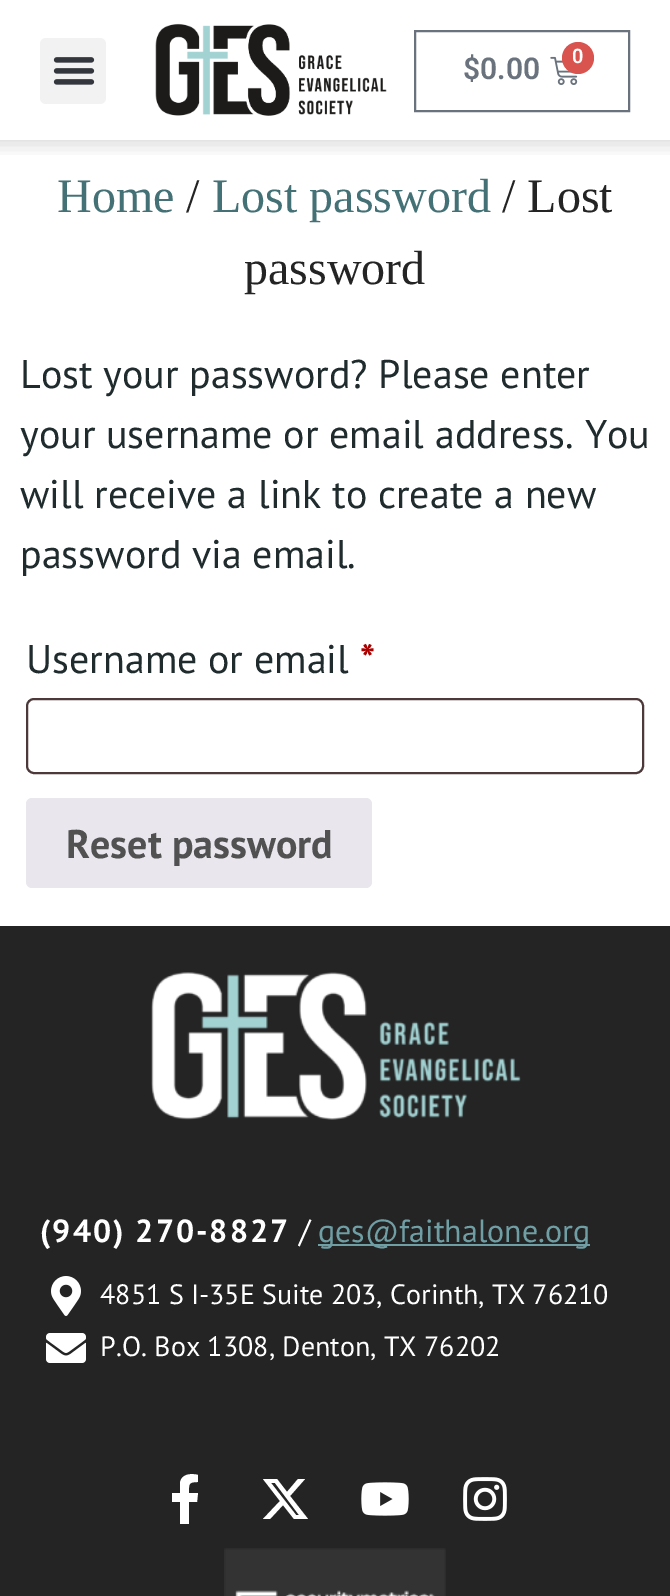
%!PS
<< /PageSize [670 1596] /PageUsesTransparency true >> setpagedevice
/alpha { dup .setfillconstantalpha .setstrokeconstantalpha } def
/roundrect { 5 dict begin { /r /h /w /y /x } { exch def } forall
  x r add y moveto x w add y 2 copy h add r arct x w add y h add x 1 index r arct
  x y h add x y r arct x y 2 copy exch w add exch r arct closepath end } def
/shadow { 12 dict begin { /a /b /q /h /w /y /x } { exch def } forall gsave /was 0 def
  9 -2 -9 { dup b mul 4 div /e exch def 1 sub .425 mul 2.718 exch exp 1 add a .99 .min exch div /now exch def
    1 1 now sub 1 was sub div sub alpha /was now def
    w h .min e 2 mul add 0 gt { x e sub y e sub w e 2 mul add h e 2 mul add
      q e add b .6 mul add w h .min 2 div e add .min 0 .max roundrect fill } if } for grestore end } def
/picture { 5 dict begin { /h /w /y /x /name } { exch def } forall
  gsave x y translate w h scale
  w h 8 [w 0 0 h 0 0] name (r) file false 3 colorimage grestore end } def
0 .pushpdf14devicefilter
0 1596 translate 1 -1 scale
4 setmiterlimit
1 setgray
0 0 670 1596 rectfill
gsave
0 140 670 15 rectclip
0 setgray
-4 -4 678 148 0 10 0.15 shadow
grestore
0.949 setgray
40 38 66 66 6 roundrect fill
(img1.rgb) 53 57 42 28 picture
(img2.rgb) 155 23 232 93 picture
0.412 0.447 0.49 setrgbcolor
2 setlinewidth
415 31 214 80 rectstroke
/Roboto-SemiBold [30 0 0 -30 0 0] selectfont
463 79 moveto ($0.00) show
(img3.rgb) 550 56 28 29 picture
0.851 0.325 0.31 setrgbcolor
newpath 578 58 16 0 360 arc closepath fill
/Roboto-SemiBold [20 0 0 -20 0 0] selectfont
1 setgray
572 63 moveto (0) show
/LiberationSerif-Regular [48 0 0 -48 0 0] selectfont
0.267 0.443 0.459 setrgbcolor
57 212 moveto (Home) show
0.141 setgray
186 212 moveto (/) show
0.267 0.443 0.459 setrgbcolor
212 212 moveto (Lost password) show
0.141 setgray
502 212 moveto (/ Lost) show
244 284 moveto (password) show
/PTSans-Regular [40 0 0 -40 0 0] selectfont
0.122 0.169 0.176 setrgbcolor
20 388 moveto (Lost your password? Please enter) show
20 448 moveto (your username or email address. You) show
20 508 moveto (will receive a link to create a new) show
20 568 moveto (password via email.) show
26 673 moveto (Username or email) show
/PTSans-Bold [40 0 0 -40 0 0] selectfont
0.667 0 0 setrgbcolor
360 673 moveto (*) show
0.302 0.224 0.224 setrgbcolor
27 699 616 74 7 roundrect stroke
0.914 0.902 0.929 setrgbcolor
26 798 346 90 6 roundrect fill
0.318 setgray
66 858 moveto (Reset password) show
0.141 setgray
0 926 670 670 rectfill
(img4.rgb) 151 972 370 148 picture
/PTSans-Bold [32 0 0 -32 0 0] selectfont
1 setgray
40 1242 moveto 2 0 (\(940\) 270-8827) ashow
/PTSans-Regular [32 0 0 -32 0 0] selectfont
299 1242 moveto (/) show
0.435 0.62 0.643 setrgbcolor
318 1244 272 2 rectfill
318 1242 moveto (ges@faithalone.org) show
(img5.rgb) 51 1276 30 40 picture
/PTSans-Regular [28 0 0 -28 0 0] selectfont
1 setgray
100 1304 moveto (4851 S I-35E Suite 203, Corinth, TX 76210) show
(img6.rgb) 46 1333 40 30 picture
100 1356 moveto (P.O. Box 1308, Denton, TX 76202) show
newpath 197 1502 moveto 198 1493 lineto 189 1493 lineto 189 1484 188 1482 198 1482 curveto 198 1475 lineto 191 1473 181 1474 180 1483 curveto 180 1493 lineto 172 1493 lineto 172 1502 lineto 180 1502 lineto 180 1524 lineto 189 1524 lineto 189 1502 lineto closepath fill
newpath 298 1479 moveto 305 1479 lineto 290 1496 lineto 308 1519 lineto 294 1519 lineto 283 1505 lineto 270 1519 lineto 263 1519 lineto 280 1501 lineto 263 1479 lineto 277 1479 lineto 287 1492 lineto closepath 296 1515 moveto 299 1515 lineto 275 1483 lineto 271 1483 lineto closepath fill
(img7.rgb) 361 1482 48 34 picture
(img8.rgb) 463 1477 44 44 picture
(img9.rgb) 224 1548 222 48 picture
.poppdf14devicefilter showpage
